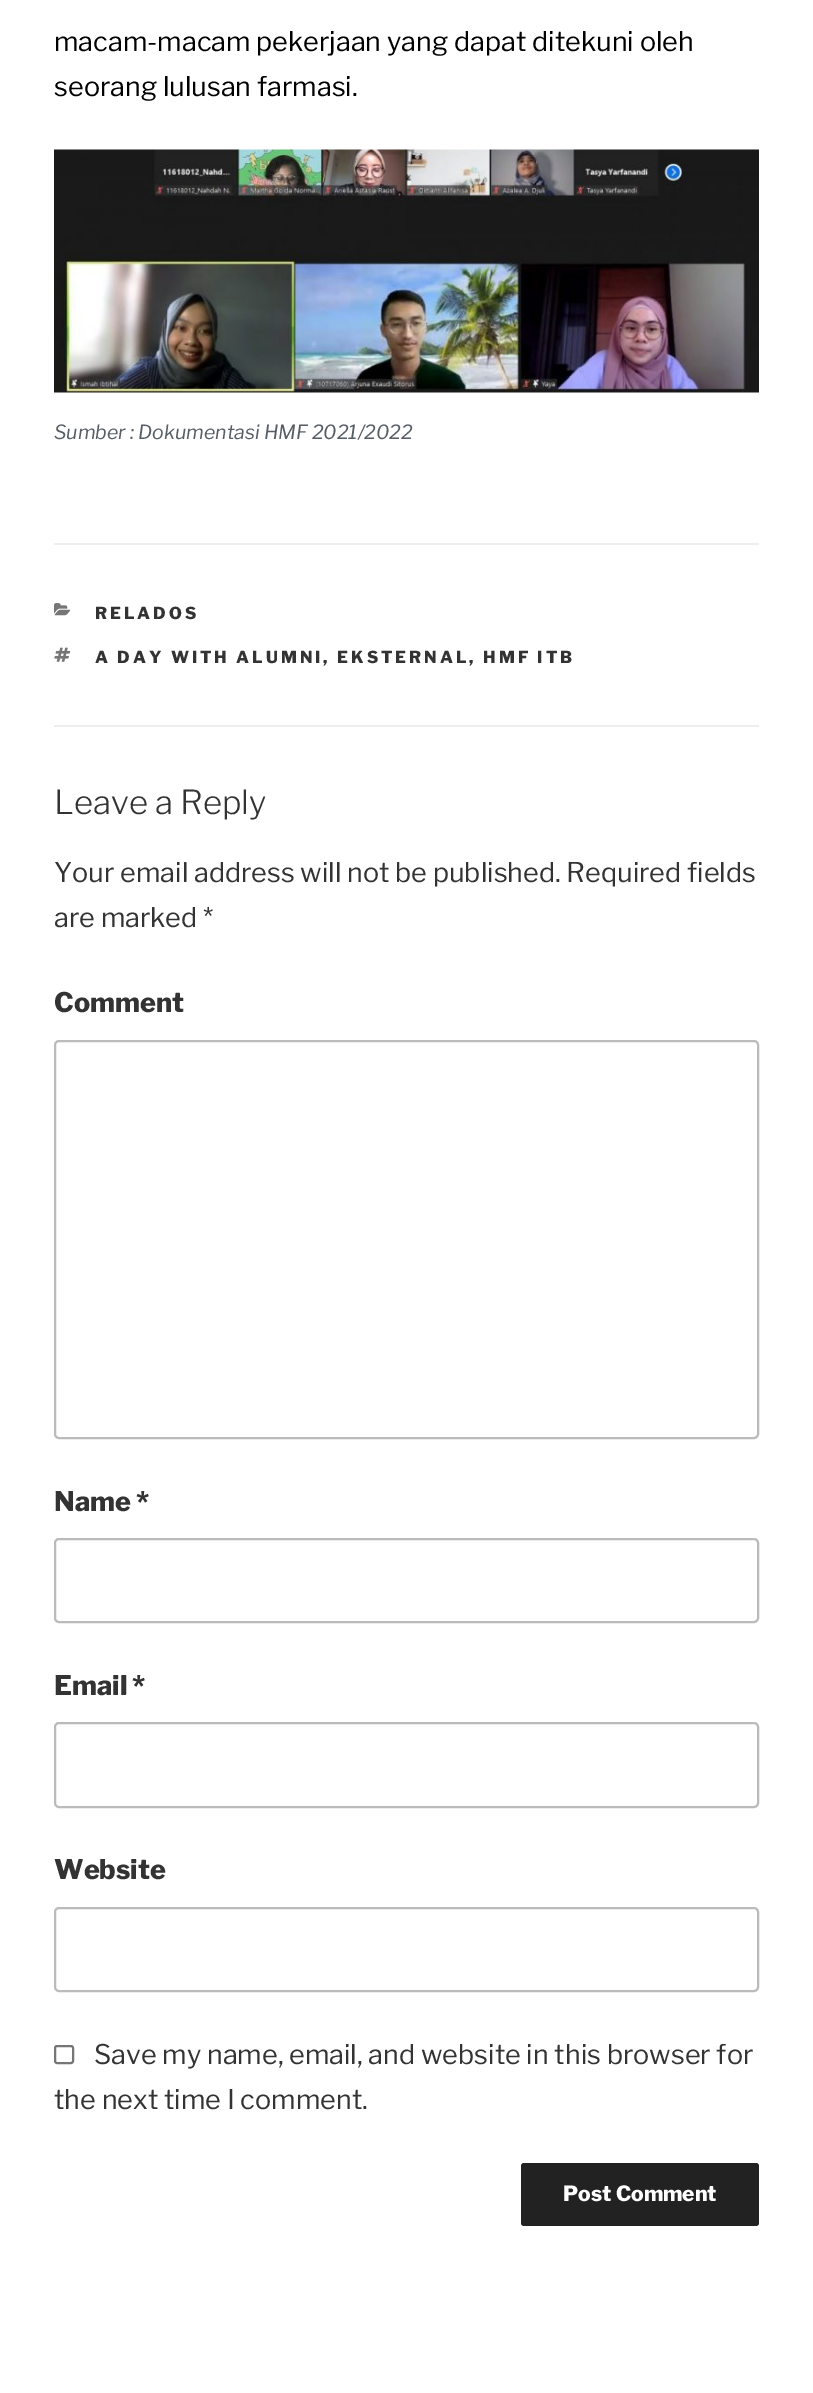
%!PS
<< /PageSize [813 2393] >> setpagedevice
/roundrect { 5 dict begin { /r /h /w /y /x } { exch def } forall
  x r add y moveto x w add y 2 copy h add r arct x w add y h add x 1 index r arct
  x y h add x y r arct x y 2 copy exch w add exch r arct closepath end } def
/picture { 5 dict begin { /h /w /y /x /name } { exch def } forall
  gsave x y translate w h scale
  w h 8 [w 0 0 h 0 0] name (r) file false 3 colorimage grestore end } def
0 2393 translate 1 -1 scale
4 setmiterlimit
1 setgray
0 0 813 2393 rectfill
/LibreFranklin-Regular [27 0 0 -27 0 0] selectfont
0 setgray
54 51 moveto (macam-macam pekerjaan yang dapat ditekuni oleh) show
54 96 moveto (seorang lulusan farmasi.) show
(img1.rgb) 54 149 705 244 picture
/LibreFranklin-Italic [19.5 0 0 -19.5 0 0] selectfont
0.333 0.365 0.4 setrgbcolor
54 439 moveto (Sumber : Dokumentasi HMF 2021/2022) show
0.933 setgray
54 543 705 2 rectfill
54 725 705 2 rectfill
(img2.rgb) 54 603 17 13 picture
/LibreFranklin-ExtraBold [16.5 0 0 -16.5 0 0] selectfont
0.2 setgray
95 619 moveto 3 0 (RELADOS) ashow
(img3.rgb) 54 647 17 15 picture
95 663 moveto 3 0 (A DAY WITH ALUMNI, EKSTERNAL, HMF ITB) ashow
/LibreFranklin-Light [33 0 0 -33 0 0] selectfont
54 814 moveto (Leave a Reply) show
/LibreFranklin-Regular [27 0 0 -27 0 0] selectfont
54 882 moveto (Your email address will not be published. Required fields) show
54 927 moveto (are marked *) show
/LibreFranklin-ExtraBold [27 0 0 -27 0 0] selectfont
54 1012 moveto (Comment) show
0.733 setgray
2 setlinewidth
55 1041 703 397 4 roundrect stroke
0.2 setgray
54 1511 moveto (Name *) show
0.733 setgray
55 1539 703 83 4 roundrect stroke
0.2 setgray
54 1695 moveto (Email *) show
0.733 setgray
55 1723 703 84 4 roundrect stroke
0.2 setgray
54 1879 moveto (Website) show
0.733 setgray
55 1908 703 83 4 roundrect stroke
0.463 setgray
55 2046 18 17 2 roundrect stroke
/LibreFranklin-Regular [27 0 0 -27 0 0] selectfont
0.2 setgray
94 2064 moveto (Save my name, email, and website in this browser for) show
54 2109 moveto (the next time I comment.) show
0.133 setgray
521 2163 238 63 3 roundrect fill
/LibreFranklin-ExtraBold [21 0 0 -21 0 0] selectfont
1 setgray
563 2201 moveto (Post Comment) show
showpage
